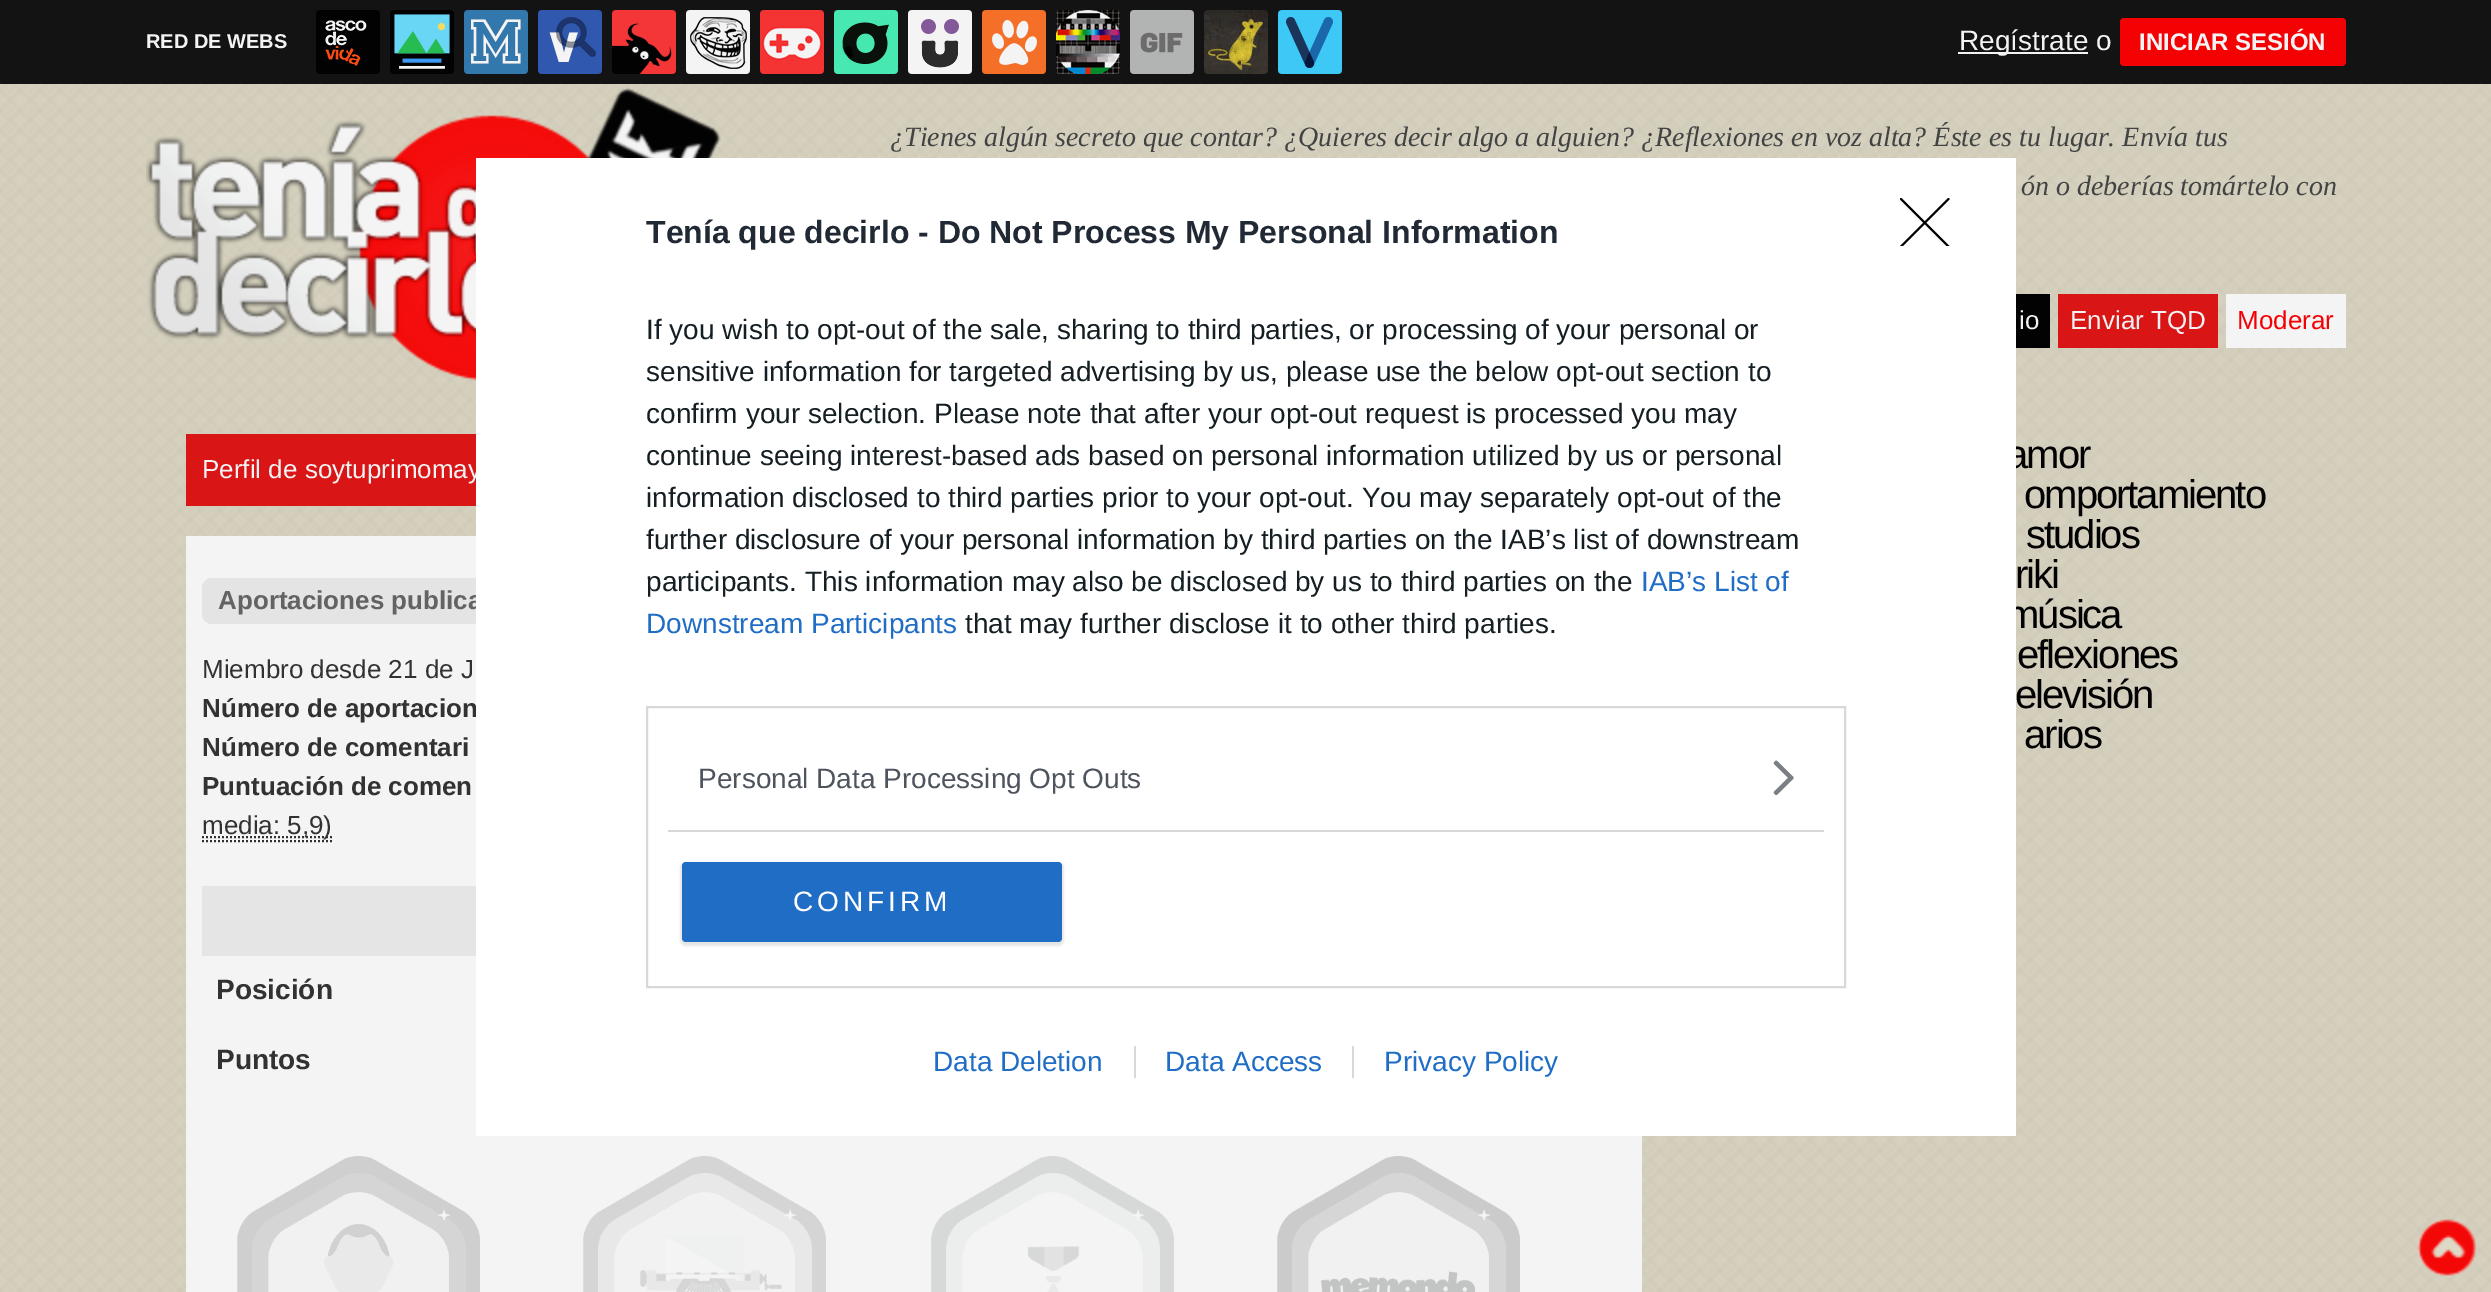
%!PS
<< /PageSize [2491 1292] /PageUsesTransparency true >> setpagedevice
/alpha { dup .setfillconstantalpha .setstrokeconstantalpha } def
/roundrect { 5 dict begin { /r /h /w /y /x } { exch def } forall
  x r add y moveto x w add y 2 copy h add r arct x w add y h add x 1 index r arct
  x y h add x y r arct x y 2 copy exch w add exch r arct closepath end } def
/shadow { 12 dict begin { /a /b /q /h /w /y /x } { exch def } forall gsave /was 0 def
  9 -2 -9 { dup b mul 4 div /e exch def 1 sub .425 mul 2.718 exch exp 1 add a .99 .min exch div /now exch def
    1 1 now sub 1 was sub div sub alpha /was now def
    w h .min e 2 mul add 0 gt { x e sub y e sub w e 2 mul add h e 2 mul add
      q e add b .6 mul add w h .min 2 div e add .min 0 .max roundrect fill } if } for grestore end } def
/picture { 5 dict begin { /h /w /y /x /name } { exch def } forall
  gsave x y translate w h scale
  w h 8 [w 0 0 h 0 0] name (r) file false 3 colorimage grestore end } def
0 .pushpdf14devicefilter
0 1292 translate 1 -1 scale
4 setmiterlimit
1 setgray
0 0 2491 1292 rectfill
(img1.rgb) 0 84 2491 1208 picture
0.075 0.075 0.078 setrgbcolor
0 0 2491 84 rectfill
/LiberationSans-Bold [20 0 0 -20 0 0] selectfont
0.953 0.953 0.957 setrgbcolor
146 48 moveto (RED DE WEBS) show
(img2.rgb) 316 10 64 64 picture
(img3.rgb) 390 10 64 64 picture
(img4.rgb) 464 10 64 64 picture
(img5.rgb) 538 10 64 64 picture
(img6.rgb) 612 10 64 64 picture
(img7.rgb) 686 10 64 64 picture
(img8.rgb) 760 10 64 64 picture
(img9.rgb) 834 10 64 64 picture
(img10.rgb) 908 10 64 64 picture
(img11.rgb) 982 10 64 64 picture
(img12.rgb) 1056 10 64 64 picture
(img13.rgb) 1130 10 64 64 picture
(img14.rgb) 1204 10 64 64 picture
(img15.rgb) 1278 10 64 64 picture
1958 52 130 2 rectfill
/LiberationSans-Regular [28 0 0 -28 0 0] selectfont
1959 50 moveto (Regístrate o) show
0.957 0.008 0.012 setrgbcolor
2120 18 226 48 4 roundrect fill
/LiberationSans-Bold [24 0 0 -24 0 0] selectfont
0.953 0.953 0.957 setrgbcolor
2139 50 moveto (INICIAR SESIÓN) show
(img16.rgb) 146 87 575 294 picture
/LiberationSerif-Italic [28 0 0 -28 0 0] selectfont
0.259 0.263 0.263 setrgbcolor
890 146 moveto (¿Tienes algún secreto que contar? ¿Quieres decir algo a alguien? ¿Reflexiones en voz alta? Éste es tu lugar. Envía tus) show
2021 195 moveto (ón o deberías tomártelo con) show
0.008 0.008 0.012 setrgbcolor
2016 294 34 54 rectfill
/LiberationSans-Regular [26 0 0 -26 0 0] selectfont
0.953 0.953 0.957 setrgbcolor
2019 329 moveto (io) show
0.851 0.082 0.086 setrgbcolor
2058 294 160 54 rectfill
0.953 0.953 0.957 setrgbcolor
2070 329 moveto (Enviar TQD) show
0.957 0.957 0.961 setrgbcolor
2226 294 120 54 rectfill
0.957 0.008 0.012 setrgbcolor
2237 329 moveto (Moderar) show
0.851 0.082 0.086 setrgbcolor
186 434 290 72 rectfill
0.953 0.953 0.957 setrgbcolor
202 478 moveto (Perfil de soytuprimomay) show
0.957 0.957 0.961 setrgbcolor
186 536 1456 756 rectfill
0.894 0.894 0.898 setrgbcolor
202 578 342 46 10 roundrect fill
/LiberationSans-Bold [26 0 0 -26 0 0] selectfont
0.388 setgray
218 609 moveto (Aportaciones publica) show
0.196 0.196 0.2 setrgbcolor
202 717 moveto (Número de aportacion) show
/LiberationSans-Regular [40 0 0 -40 0 0] selectfont
0.008 0.008 0.012 setrgbcolor
2006 468 moveto -2 0 (amor) ashow
2006 628 moveto -2 0 (música) ashow
1 setgray
476 158 1540 978 rectfill
/LiberationSans-Bold [32 0 0 -32 0 0] selectfont
0.129 0.161 0.204 setrgbcolor
646 243 moveto (Tenía que decirlo - Do Not Process My Personal Information) show
/LiberationSans-Regular [28 0 0 -28 0 0] selectfont
0.078 0.118 0.137 setrgbcolor
646 339 moveto (If you wish to opt-out of the sale, sharing to third parties, or processing of your personal or) show
646 381 moveto (sensitive information for targeted advertising by us, please use the below opt-out section to) show
646 423 moveto (confirm your selection. Please note that after your opt-out request is processed you may) show
646 465 moveto (continue seeing interest-based ads based on personal information utilized by us or personal) show
646 507 moveto (information disclosed to third parties prior to your opt-out. You may separately opt-out of the) show
646 549 moveto (further disclosure of your personal information by third parties on the IAB’s list of downstream) show
646 591 moveto (participants. This information may also be disclosed by us to third parties on the) show
0.125 0.427 0.773 setrgbcolor
1641 591 moveto (IAB’s List of) show
646 633 moveto (Downstream Participants) show
0.078 0.118 0.137 setrgbcolor
965 633 moveto (that may further disclose it to other third parties.) show
0.847 setgray
2 setlinewidth
647 707 1198 280 rectstroke
668 830 1156 2 rectfill
0.302 0.329 0.365 setrgbcolor
698 788 moveto (Personal Data Processing Opt Outs) show
(img17.rgb) 1773 760 21 36 picture
0 setgray
680 862 384 84 6 1 0.1 shadow
0.125 0.427 0.773 setrgbcolor
682 862 380 80 4 roundrect fill
1 setgray
793 911 moveto 4 0 (CONFIRM) ashow
gsave
1900 198 50 48 rectclip
0 setgray
2.1 setlinewidth
1 setlinecap
1 setlinejoin
newpath 1901 199 moveto 1948.5 246.5 lineto 1948.5 199 moveto 1901 246.5 lineto stroke
grestore
0.125 0.427 0.773 setrgbcolor
933 1071 moveto (Data Deletion) show
1165 1071 moveto (Data Access) show
0.847 setgray
1134 1046 2 32 rectfill
0.125 0.427 0.773 setrgbcolor
1384 1071 moveto (Privacy Policy) show
0.847 setgray
1352 1046 2 32 rectfill
/LiberationSans-Regular [26 0 0 -26 0 0] selectfont
0.196 0.196 0.2 setrgbcolor
202 678 moveto (Miembro desde 21 de J) show
/LiberationSans-Bold [26 0 0 -26 0 0] selectfont
202 756 moveto (Número de comentari) show
202 795 moveto (Puntuación de comen) show
[2 2] 0 setdash
newpath 202 837 moveto 332 837 lineto stroke
/LiberationSans-Regular [26 0 0 -26 0 0] selectfont
202 834 moveto (media: 5,9\)) show
newpath 202 841 moveto 332 841 lineto stroke
0.898 0.898 0.902 setrgbcolor
202 886 274 70 rectfill
/LiberationSans-Bold [28 0 0 -28 0 0] selectfont
0.196 0.196 0.2 setrgbcolor
216 999 moveto (Posición) show
216 1069 moveto (Puntos) show
(img18.rgb) 237 1156 243 136 picture
(img19.rgb) 583 1156 243 136 picture
(img20.rgb) 931 1156 243 136 picture
(img21.rgb) 1277 1156 243 136 picture
/LiberationSans-Regular [40 0 0 -40 0 0] selectfont
0.008 0.008 0.012 setrgbcolor
2024 508 moveto -2 0 (omportamiento) ashow
2026 548 moveto -2 0 (studios) ashow
2015 588 moveto -2 0 (riki) ashow
2017 668 moveto -2 0 (eflexiones) ashow
2015 708 moveto -2 0 (elevisión) ashow
2024 748 moveto -2 0 (arios) ashow
(img22.rgb) 2417 1219 59 57 picture
.poppdf14devicefilter showpage
